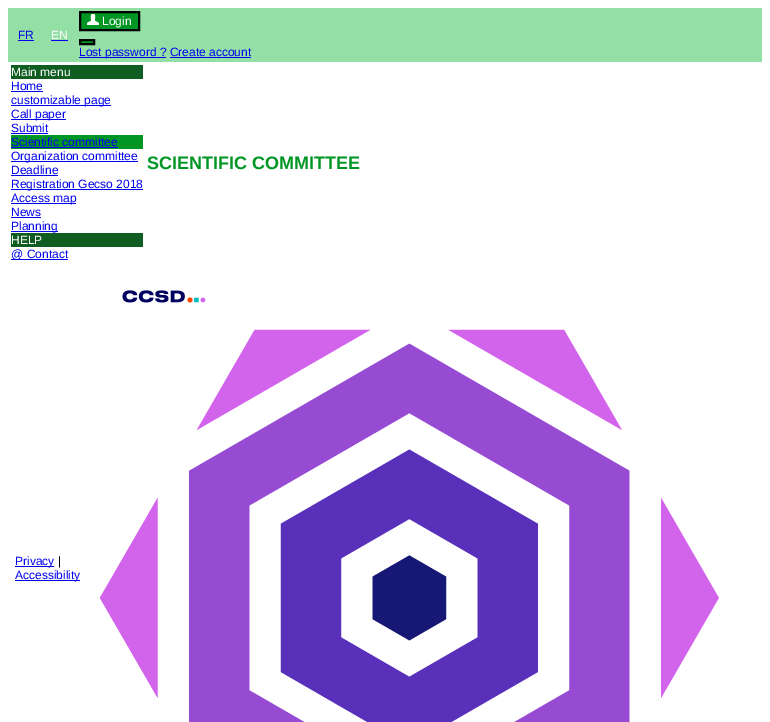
%!PS
<< /PageSize [770 722] >> setpagedevice
/picture { 5 dict begin { /h /w /y /x /name } { exch def } forall
  gsave x y translate w h scale
  w h 8 [w 0 0 h 0 0] name (r) file false 3 colorimage grestore end } def
0 722 translate 1 -1 scale
4 setmiterlimit
1 setgray
0 0 770 722 rectfill
0.58 0.875 0.647 setrgbcolor
8 8 754 54 rectfill
/LiberationSans-Regular [12 0 0 -12 0 0] selectfont
0 0 0.933 setrgbcolor
18 39 moveto (FR) show
18 40 16 1 rectfill
1 setgray
51 39 moveto (EN) show
0 0 0.933 setrgbcolor
51 40 17 1 rectfill
0 0.588 0.137 setrgbcolor
newpath 80 12 moveto 139 12 lineto 139 30 lineto 80 30 lineto closepath gsave fill grestore
0 setgray
2 setlinewidth
stroke
(img1.rgb) 87 14 12 11 picture
1 setgray
102 25 moveto (Login) show
0 0.588 0.137 setrgbcolor
newpath 80 40 moveto 94 40 lineto 94 44 lineto 80 44 lineto closepath gsave fill grestore
0 setgray
stroke
0 0 0.933 setrgbcolor
79 57 87 1 rectfill
79 56 moveto (Lost password ? Create account) show
170 57 81 1 rectfill
0.059 0.365 0.129 setrgbcolor
11 65 132 14 rectfill
1 setgray
11 76 moveto (Main menu) show
0 0 0.933 setrgbcolor
11 90 moveto (Home) show
11 91 32 1 rectfill
11 105 100 1 rectfill
11 104 moveto (customizable page) show
11 119 55 1 rectfill
11 118 moveto (Call paper) show
11 132 moveto (Submit) show
11 133 37 1 rectfill
0 0.588 0.137 setrgbcolor
11 135 132 14 rectfill
0 0 0.933 setrgbcolor
11 146 moveto (Scientific committee) show
11 147 107 1 rectfill
11 161 127 1 rectfill
11 160 moveto (Organization committee) show
11 174 moveto (Deadline) show
11 175 47 1 rectfill
11 189 132 1 rectfill
11 188 moveto (Registration Gecso 2018) show
11 203 65 1 rectfill
11 202 moveto (Access map) show
11 216 moveto (News) show
11 217 30 1 rectfill
11 231 47 1 rectfill
11 230 moveto (Planning) show
0.059 0.365 0.129 setrgbcolor
11 233 132 14 rectfill
1 setgray
11 244 moveto (HELP) show
0 0 0.933 setrgbcolor
11 259 57 1 rectfill
11 258 moveto (@ Contact) show
/LiberationSans-Bold [18 0 0 -18 0 0] selectfont
0 0.588 0.137 setrgbcolor
147 169 moveto (SCIENTIFIC COMMITTEE) show
0 0 0.933 setrgbcolor
15 566 39 1 rectfill
/LiberationSans-Regular [12 0 0 -12 0 0] selectfont
15 565 moveto (Privacy) show
0 setgray
58 565 moveto (|) show
0 0 0.933 setrgbcolor
15 580 65 1 rectfill
15 579 moveto (Accessibility) show
(img2.rgb) 122 290 84 13 picture
(img3.rgb) 99 329 620 393 picture
showpage
